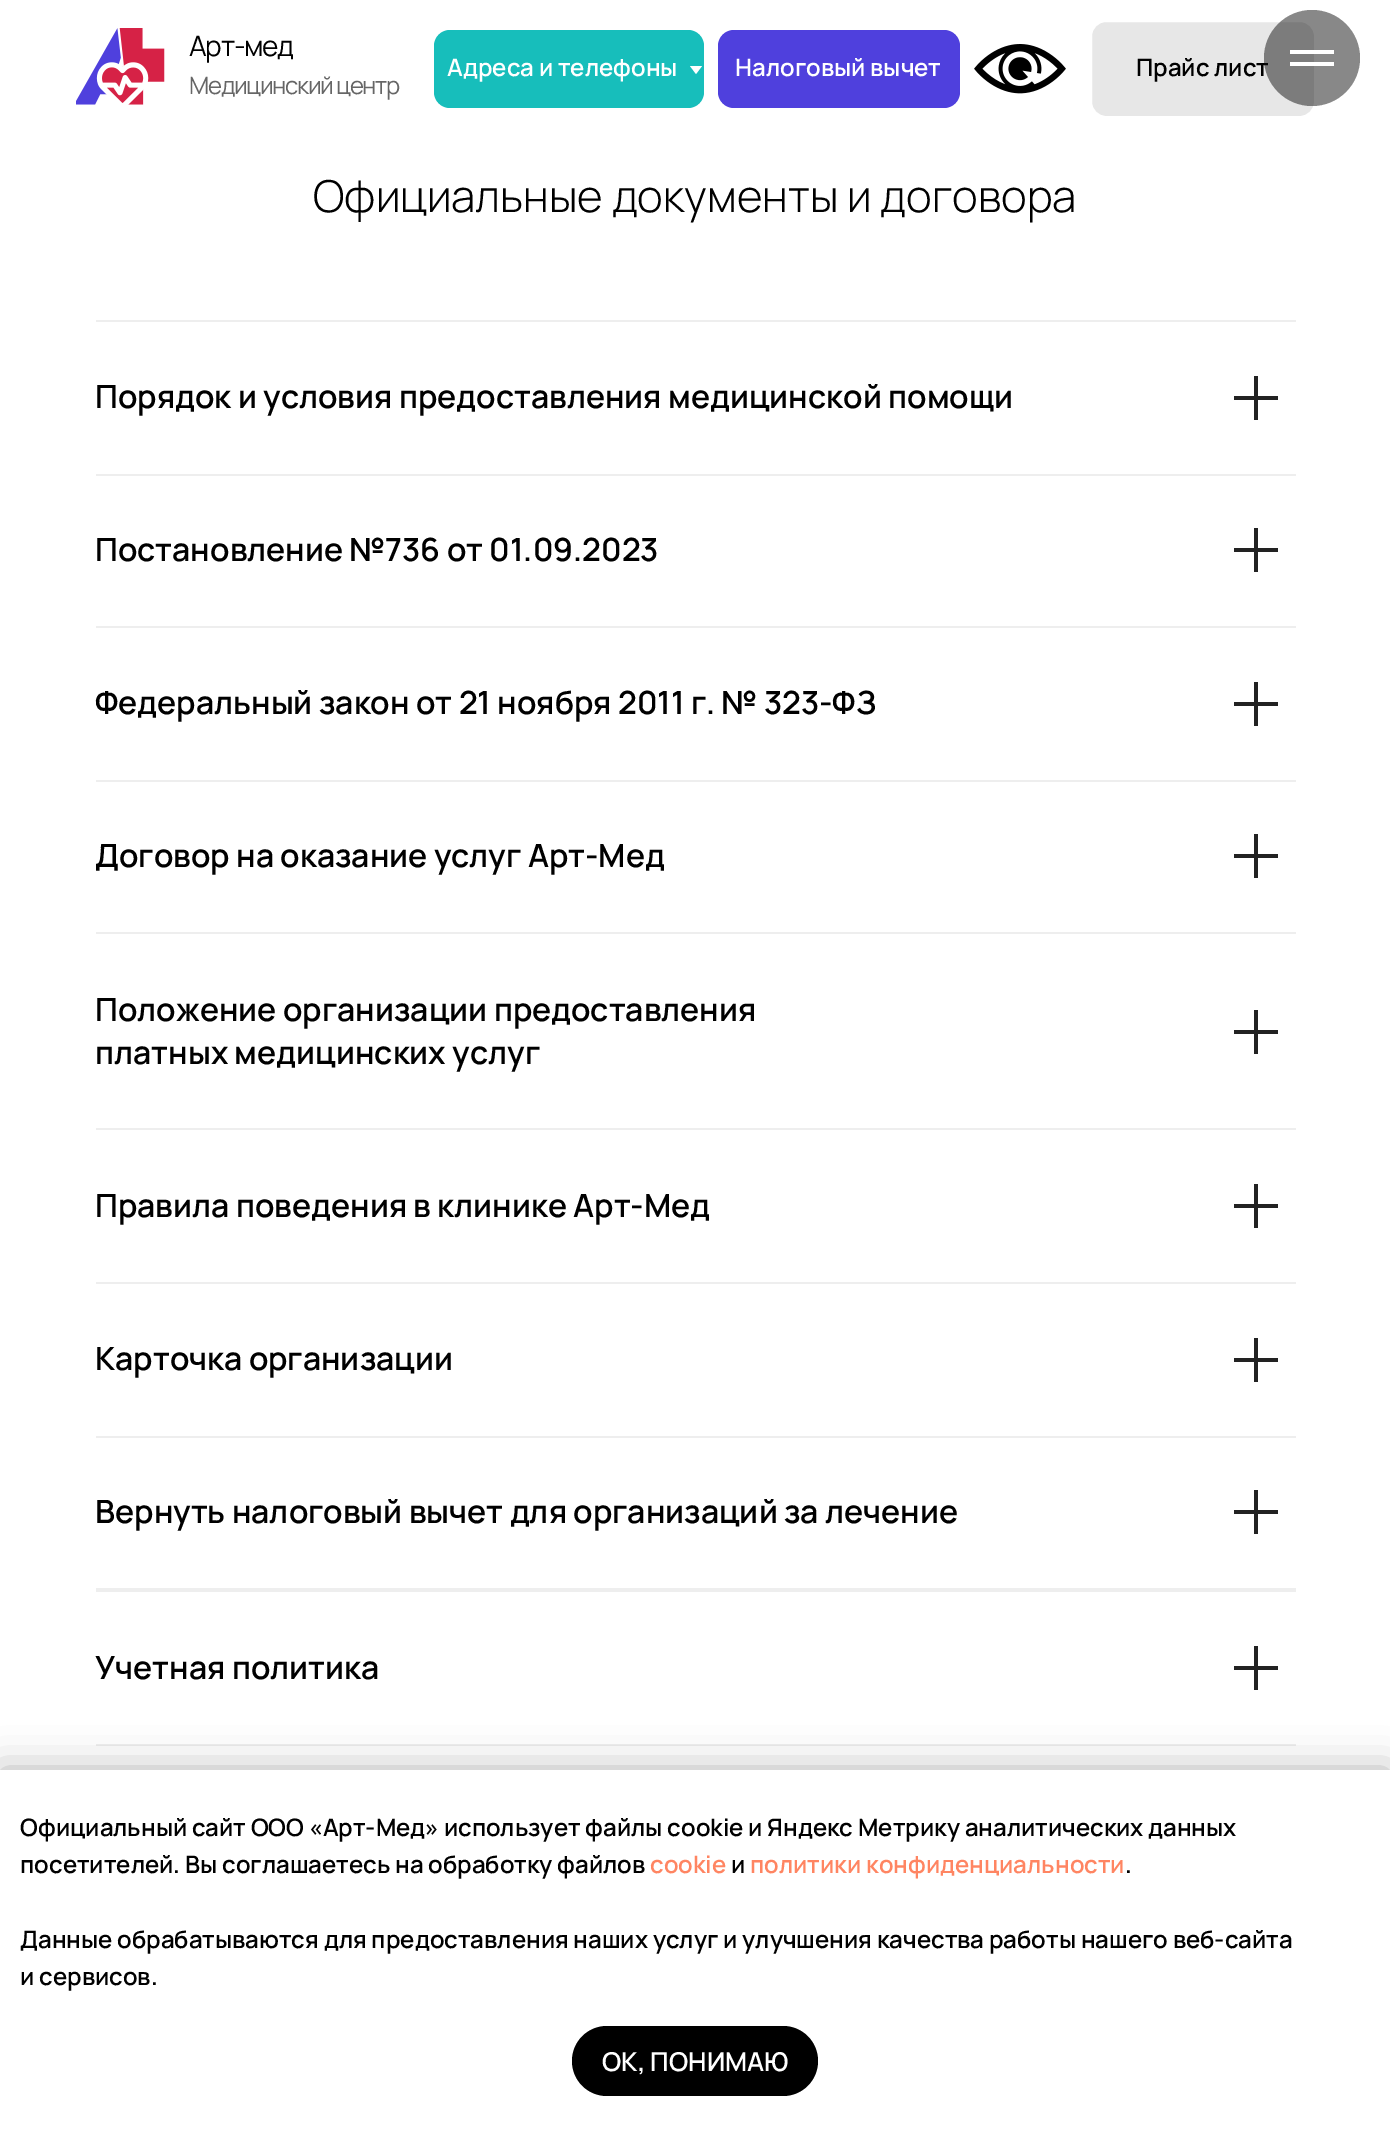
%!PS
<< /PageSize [1390 2136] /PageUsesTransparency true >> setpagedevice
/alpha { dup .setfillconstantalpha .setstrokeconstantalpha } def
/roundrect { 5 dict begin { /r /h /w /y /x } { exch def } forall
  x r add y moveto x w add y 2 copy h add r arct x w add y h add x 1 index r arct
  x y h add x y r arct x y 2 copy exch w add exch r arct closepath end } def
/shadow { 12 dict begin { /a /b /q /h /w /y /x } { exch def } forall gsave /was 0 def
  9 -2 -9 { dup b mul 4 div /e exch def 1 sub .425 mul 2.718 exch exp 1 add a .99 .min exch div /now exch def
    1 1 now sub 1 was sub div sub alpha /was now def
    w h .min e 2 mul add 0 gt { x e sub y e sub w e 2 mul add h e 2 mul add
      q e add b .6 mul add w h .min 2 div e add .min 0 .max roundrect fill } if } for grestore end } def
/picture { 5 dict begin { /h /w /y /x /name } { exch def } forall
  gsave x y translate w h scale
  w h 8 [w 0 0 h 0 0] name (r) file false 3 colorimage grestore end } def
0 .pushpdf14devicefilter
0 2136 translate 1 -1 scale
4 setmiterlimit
1 setgray
0 0 1390 2136 rectfill
(img1.rgb) 76 28 89 77 picture
/Manrope-Regular [28 0 0 -28 0 0] selectfont
0 setgray
189 56 moveto -1.25 0 (Арт-мед) ashow
0.09 0.745 0.733 setrgbcolor
434 30 270 78 16 roundrect fill
/Manrope-SemiBold [24 0 0 -24 0 0] selectfont
1 setgray
447 76 moveto (Адреса и телефоны) show
newpath 690 66 moveto 702 66 lineto 696 74 lineto closepath fill
0.31 0.251 0.867 setrgbcolor
718 30 242 78 16 roundrect fill
1 setgray
735 76 moveto (Налоговый вычет) show
(img2.rgb) 974 44 92 50 picture
0.906 setgray
1091 21 224 96 15 roundrect gsave fill grestore
1 setgray
2 setlinewidth
stroke
0 setgray
1136 76 moveto (Прайс лист) show
/Manrope-Regular [24 0 0 -24 0 0] selectfont
0.4 setgray
189 94 moveto -1.25 0 (Медицинский центр) ashow
0.5 alpha
0.067 setgray
newpath 1312 58 48 0 360 arc closepath fill
1 alpha
1 setgray
1290 50 44 4 rectfill
1290 62 44 4 rectfill
/Manrope-Light [44 0 0 -44 0 0] selectfont
0 setgray
313 212 moveto (Официальные документы и договора) show
0.933 setgray
96 320 1200 2 rectfill
/Manrope-SemiBold [32 0 0 -32 0 0] selectfont
0 setgray
95 408 moveto (Порядок и условия предоставления медицинской помощи) show
0.133 setgray
1234 396 44 4 rectfill
1254 376 4 44 rectfill
0.933 setgray
96 474 1200 2 rectfill
0 setgray
95 561 moveto (Постановление №736 от 01.09.2023) show
0.133 setgray
1234 548 44 4 rectfill
1254 528 4 44 rectfill
0.933 setgray
96 626 1200 2 rectfill
0 setgray
95 714 moveto (Федеральный закон от 21 ноября 2011 г. № 323-ФЗ) show
0.133 setgray
1234 702 44 4 rectfill
1254 682 4 44 rectfill
0.933 setgray
96 780 1200 2 rectfill
0 setgray
95 867 moveto (Договор на оказание услуг Арт-Мед) show
0.133 setgray
1234 854 44 4 rectfill
1254 834 4 44 rectfill
0.933 setgray
96 932 1200 2 rectfill
0 setgray
95 1021 moveto (Положение организации предоставления) show
95 1064 moveto (платных медицинских услуг) show
0.133 setgray
1234 1030 44 4 rectfill
1254 1010 4 44 rectfill
0.933 setgray
96 1128 1200 2 rectfill
0 setgray
95 1217 moveto (Правила поведения в клинике Арт-Мед) show
0.133 setgray
1234 1204 44 4 rectfill
1254 1184 4 44 rectfill
0.933 setgray
96 1282 1200 2 rectfill
0 setgray
95 1370 moveto (Карточка организации) show
0.133 setgray
1234 1358 44 4 rectfill
1254 1338 4 44 rectfill
0.933 setgray
96 1436 1200 2 rectfill
0 setgray
95 1523 moveto (Вернуть налоговый вычет для организаций за лечение) show
0.133 setgray
1234 1510 44 4 rectfill
1254 1490 4 44 rectfill
0.933 setgray
96 1588 1200 4 rectfill
0 setgray
95 1679 moveto (Учетная политика) show
0.133 setgray
1234 1666 44 4 rectfill
1254 1646 4 44 rectfill
0.933 setgray
96 1744 1200 2 rectfill
0 setgray
0 1770 1390 366 0 20 0.3 shadow
1 setgray
0 1770 1390 366 rectfill
/Manrope-SemiBold [24 0 0 -24 0 0] selectfont
0 setgray
20 1836 moveto (Официальный сайт ООО «Арт-Мед» использует файлы cookie и Яндекс Метрику аналитических данных) show
20 1873 moveto (посетителей. Вы соглашаетесь на обработку файлов) show
1 0.522 0.384 setrgbcolor
650 1873 moveto (cookie) show
0 setgray
731 1873 moveto (и) show
1 0.522 0.384 setrgbcolor
750 1873 moveto (политики конфиденциальности) show
0 setgray
1125 1873 moveto (.) show
20 1948 moveto (Данные обрабатываются для предоставления наших услуг и улучшения качества работы нашего веб-сайта) show
20 1985 moveto (и сервисов.) show
572 2026 246 70 35 roundrect fill
/Manrope-SemiBold [26 0 0 -26 0 0] selectfont
1 setgray
602 2071 moveto (ОК, ПОНИМАЮ) show
.poppdf14devicefilter showpage
